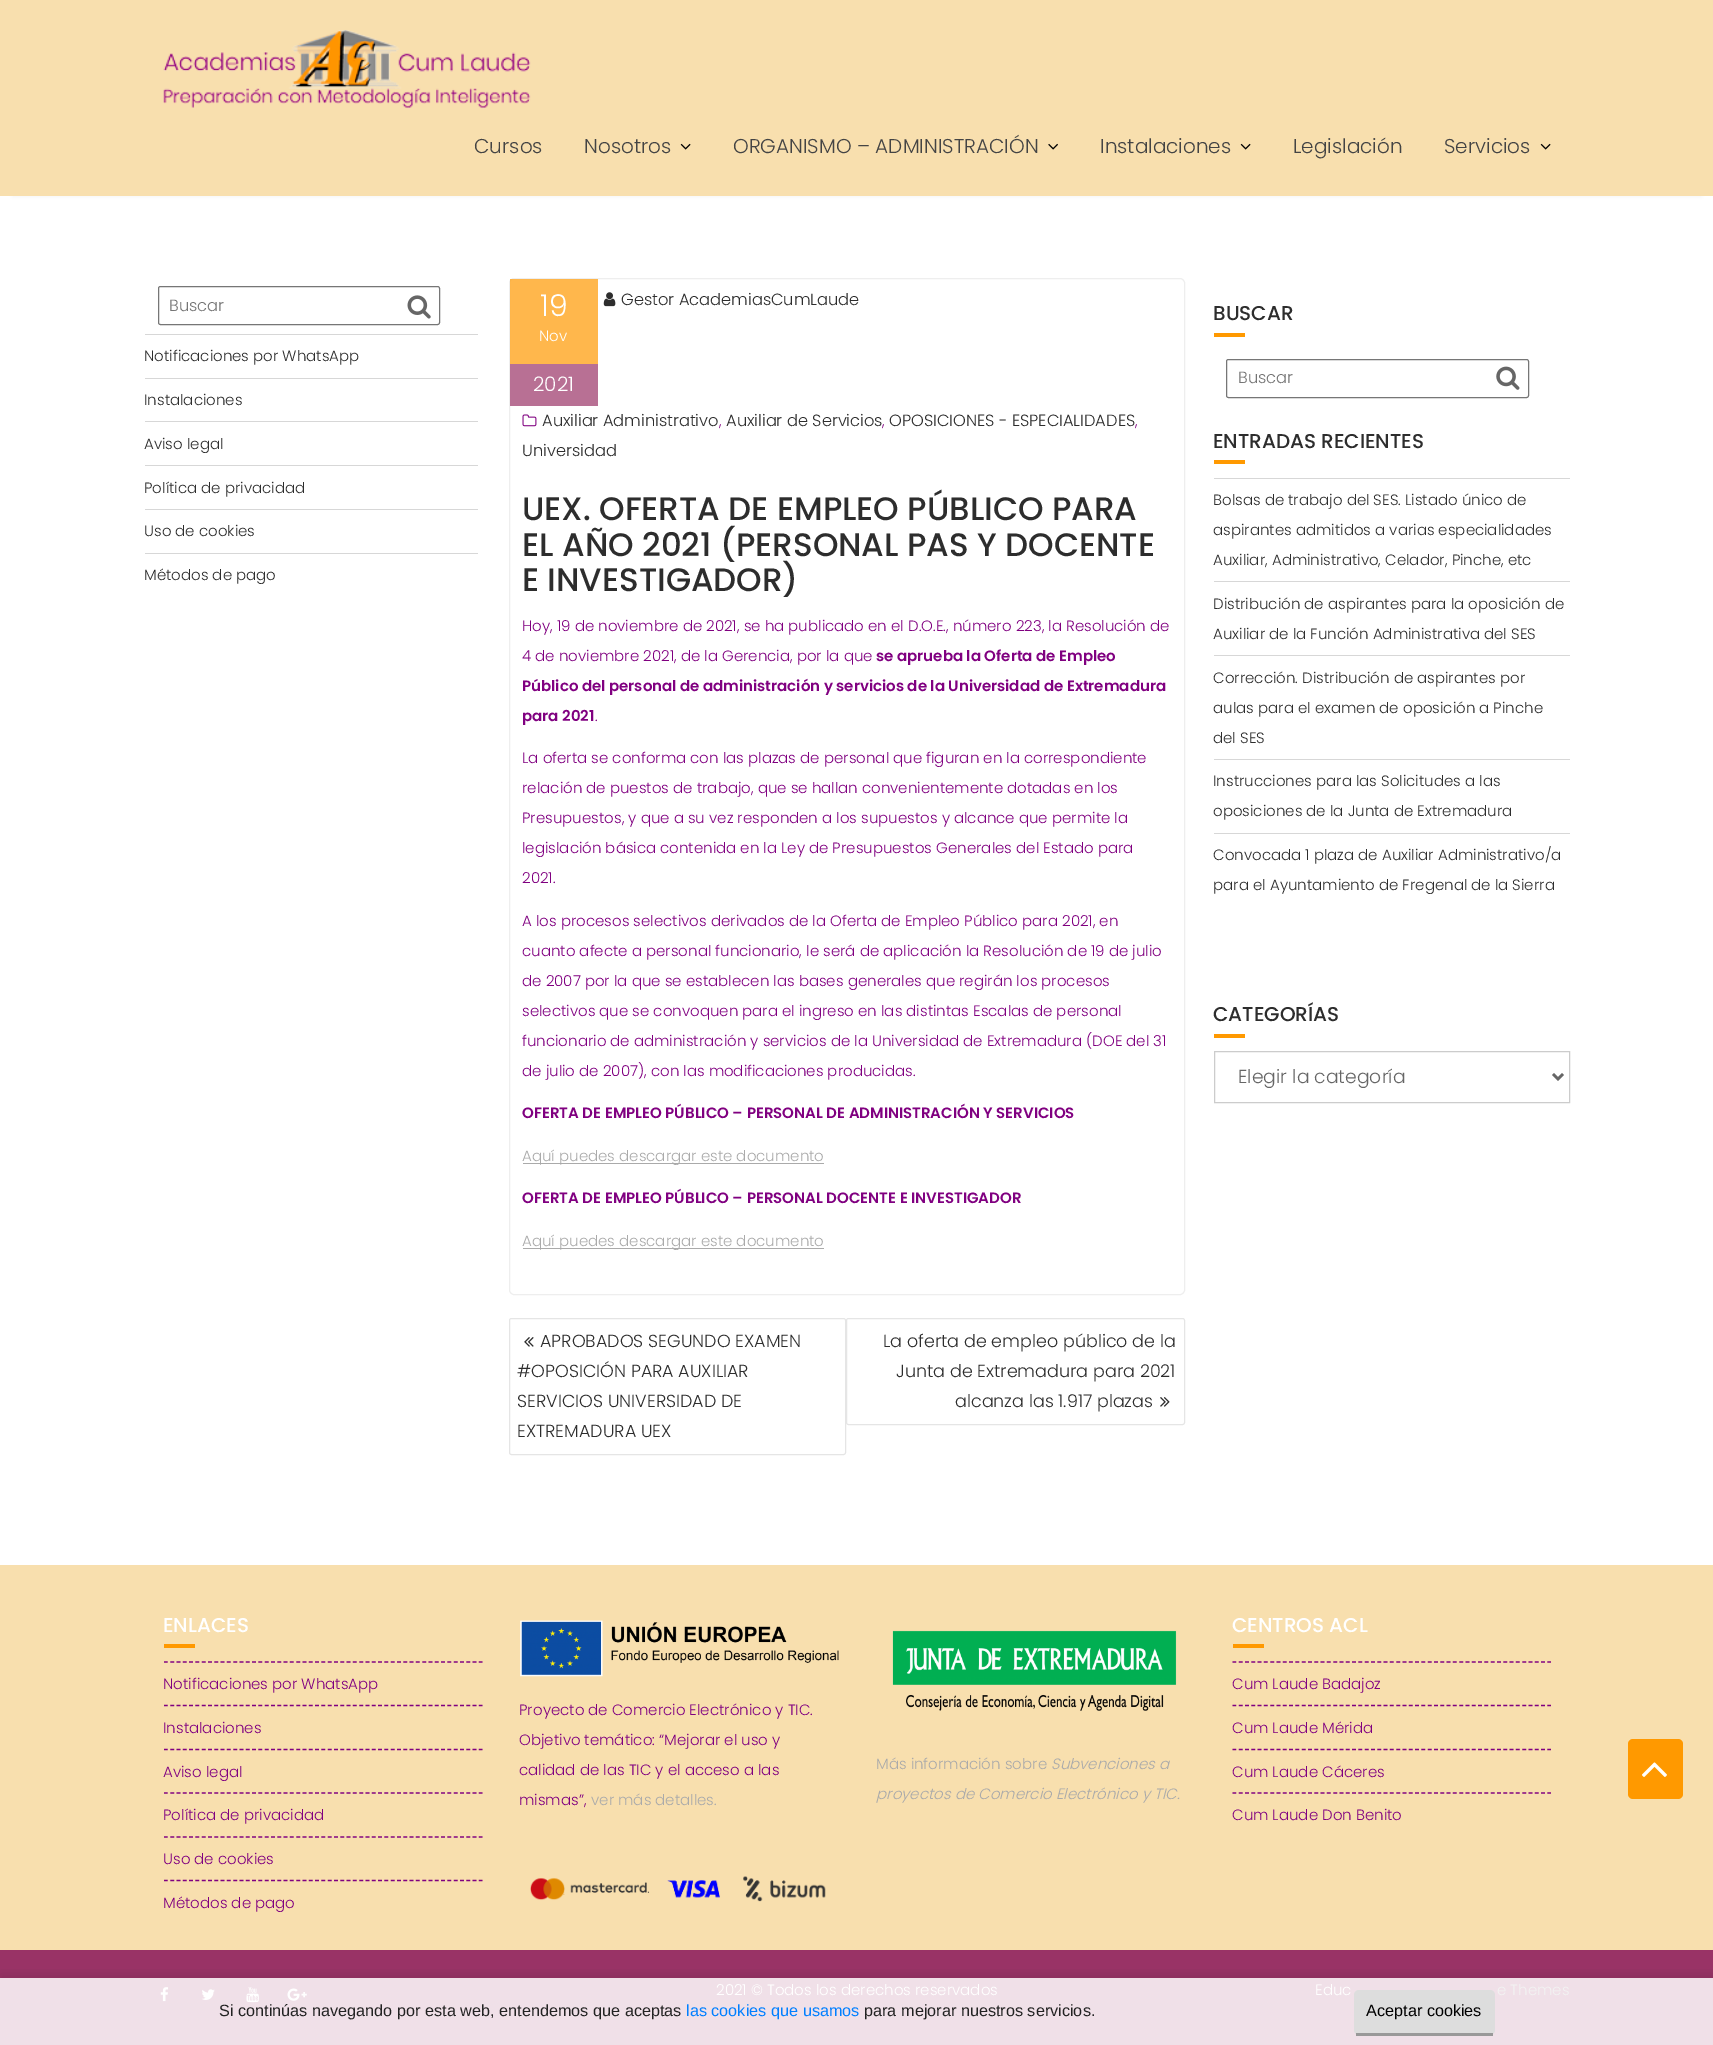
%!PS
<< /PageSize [1713 2045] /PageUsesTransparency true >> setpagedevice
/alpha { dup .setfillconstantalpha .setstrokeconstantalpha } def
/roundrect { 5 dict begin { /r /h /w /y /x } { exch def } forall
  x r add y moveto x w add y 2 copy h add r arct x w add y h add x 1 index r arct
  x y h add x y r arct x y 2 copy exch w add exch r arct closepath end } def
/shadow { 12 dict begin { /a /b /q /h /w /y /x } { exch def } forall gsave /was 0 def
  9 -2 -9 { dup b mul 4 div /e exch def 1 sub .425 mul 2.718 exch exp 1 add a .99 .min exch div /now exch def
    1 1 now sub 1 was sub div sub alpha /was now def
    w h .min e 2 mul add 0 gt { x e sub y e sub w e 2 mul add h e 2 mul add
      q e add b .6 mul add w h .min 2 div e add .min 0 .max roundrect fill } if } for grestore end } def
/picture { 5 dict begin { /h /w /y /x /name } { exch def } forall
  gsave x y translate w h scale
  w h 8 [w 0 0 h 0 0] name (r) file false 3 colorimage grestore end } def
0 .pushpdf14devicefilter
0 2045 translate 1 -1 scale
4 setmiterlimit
1 setgray
0 0 1713 2045 rectfill
0.933 setgray
13 25 1688 171 0 2.5 0.9 shadow
0.973 0.875 0.682 setrgbcolor
0 0 1713 196 rectfill
(img1.rgb) 163 30 368 79 picture
/Poppins-Light [20 0 0 -20 0 0] selectfont
0.267 setgray
474 153 moveto (Cursos) show
584 153 moveto (Nosotros) show
(img2.rgb) 680 143 11 7 picture
733 153 moveto (ORGANISMO – ADMINISTRACIÓN) show
(img3.rgb) 1048 143 10 7 picture
1100 153 moveto (Instalaciones) show
(img2.rgb) 1240 143 11 7 picture
1293 153 moveto (Legislación) show
1444 153 moveto (Servicios) show
(img2.rgb) 1540 143 11 7 picture
0.463 setgray
158.5 286.5 281 38 2 roundrect stroke
/Poppins-Light [16.25 0 0 -16.25 0 0] selectfont
0.459 setgray
169 311 moveto (Buscar) show
(img4.rgb) 407 295 24 24 picture
0.843 setgray
145 334 333 1 rectfill
/Poppins-Light [15 0 0 -15 0 0] selectfont
0.176 setgray
144 361 moveto (Notificaciones por WhatsApp) show
0.843 setgray
145 378 333 1 rectfill
0.176 setgray
144 405 moveto (Instalaciones) show
0.843 setgray
145 421 333 1 rectfill
0.176 setgray
144 449 moveto (Aviso legal) show
0.843 setgray
145 465 333 1 rectfill
0.176 setgray
144 493 moveto (Política de privacidad) show
0.843 setgray
145 509 333 1 rectfill
0.176 setgray
144 536 moveto (Uso de cookies) show
0.843 setgray
145 553 333 1 rectfill
0.176 setgray
144 580 moveto (Métodos de pago) show
0.933 setgray
509.5 278.5 675 1016 4.5 roundrect stroke
(img5.rgb) 603 292 13 15 picture
/Poppins-Light [16.25 0 0 -16.25 0 0] selectfont
0.176 setgray
621 305 moveto (Gestor AcademiasCumLaude) show
(img6.rgb) 522 414 15 13 picture
542 426 moveto (Auxiliar Administrativo) show
/Poppins-Light [15 0 0 -15 0 0] selectfont
0.502 0 0.502 setrgbcolor
719 426 moveto (,) show
/Poppins-Light [16.25 0 0 -16.25 0 0] selectfont
0.176 setgray
726 426 moveto (Auxiliar de Servicios) show
/Poppins-Light [15 0 0 -15 0 0] selectfont
0.502 0 0.502 setrgbcolor
882 426 moveto (,) show
/Poppins-Light [16.25 0 0 -16.25 0 0] selectfont
0.176 setgray
889 426 moveto (OPOSICIONES - ESPECIALIDADES) show
/Poppins-Light [15 0 0 -15 0 0] selectfont
0.502 0 0.502 setrgbcolor
1135 426 moveto (,) show
/Poppins-Light [16.25 0 0 -16.25 0 0] selectfont
0.176 setgray
522 456 moveto (Universidad) show
/Poppins-Medium [32.5 0 0 -32.5 0 0] selectfont
522 520 moveto (UEX. OFERTA DE EMPLEO PÚBLICO PARA) show
522 556 moveto (EL AÑO 2021 \(PERSONAL PAS Y DOCENTE) show
522 591 moveto (E INVESTIGADOR\)) show
/Poppins-Light [15 0 0 -15 0 0] selectfont
0.502 0 0.502 setrgbcolor
522 631 moveto (Hoy, 19 de noviembre de 2021, se ha publicado en el D.O.E., número 223, la Resolución de) show
522 661 moveto (4 de noviembre 2021, de la Gerencia, por la que) show
/Poppins-SemiBold [15 0 0 -15 0 0] selectfont
876 661 moveto (se aprueba la Oferta de Empleo) show
522 691 moveto (Público del personal de administración y servicios de la Universidad de Extremadura) show
522 721 moveto (para 2021) show
/Poppins-Light [15 0 0 -15 0 0] selectfont
595 721 moveto (.) show
522 763 moveto (La oferta se conforma con las plazas de personal que figuran en la correspondiente) show
522 793 moveto (relación de puestos de trabajo, que se hallan convenientemente dotadas en los) show
522 823 moveto (Presupuestos, y que a su vez responden a los supuestos y alcance que permite la) show
522 853 moveto (legislación básica contenida en la Ley de Presupuestos Generales del Estado para) show
522 883 moveto (2021.) show
522 926 moveto (A los procesos selectivos derivados de la Oferta de Empleo Público para 2021, en) show
522 956 moveto (cuanto afecte a personal funcionario, le será de aplicación la Resolución de 19 de julio) show
522 986 moveto (de 2007 por la que se establecen las bases generales que regirán los procesos) show
522 1016 moveto (selectivos que se convoquen para el ingreso en las distintas Escalas de personal) show
522 1046 moveto (funcionario de administración y servicios de la Universidad de Extremadura \(DOE del 31) show
522 1076 moveto (de julio de 2007\), con las modificaciones producidas.) show
/Poppins-SemiBold [15 0 0 -15 0 0] selectfont
522 1118 moveto (OFERTA DE EMPLEO PÚBLICO – PERSONAL DE ADMINISTRACIÓN Y SERVICIOS) show
0.667 setgray
523 1163 301 1 rectfill
/Poppins-Light [15 0 0 -15 0 0] selectfont
522 1161 moveto (Aquí puedes descargar este documento) show
/Poppins-SemiBold [15 0 0 -15 0 0] selectfont
0.502 0 0.502 setrgbcolor
522 1203 moveto (OFERTA DE EMPLEO PÚBLICO – PERSONAL DOCENTE E INVESTIGADOR) show
0.667 setgray
523 1248 301 1 rectfill
/Poppins-Light [15 0 0 -15 0 0] selectfont
522 1246 moveto (Aquí puedes descargar este documento) show
0.7 alpha
1 0.6 0 setrgbcolor
510 279 88 85 rectfill
/Poppins-Light [30 0 0 -30 0 0] selectfont
1 alpha
1 setgray
540 316 moveto (19) show
/Poppins-Light [15 0 0 -15 0 0] selectfont
539 341 moveto (Nov) show
0.722 0.439 0.58 setrgbcolor
510 364 88 42 rectfill
/Poppins-Light [20 0 0 -20 0 0] selectfont
1 setgray
533 391 moveto (2021) show
0.898 setgray
509.5 1318.5 336 136 2 roundrect stroke
(img7.rgb) 524 1337 10 10 picture
/Poppins-Light [17.5 0 0 -17.5 0 0] selectfont
0.176 setgray
540 1347 moveto (APROBADOS SEGUNDO EXAMEN) show
517 1377 moveto (#OPOSICIÓN PARA AUXILIAR) show
517 1407 moveto (SERVICIOS UNIVERSIDAD DE) show
517 1437 moveto (EXTREMADURA UEX) show
0.898 setgray
846.5 1318.5 338 106 2 roundrect stroke
0.176 setgray
883 1347 moveto (La oferta de empleo público de la) show
896 1377 moveto (Junta de Extremadura para 2021) show
955 1407 moveto (alcanza las 1.917 plazas) show
(img8.rgb) 1160 1397 10 10 picture
/Poppins-Medium [20 0 0 -20 0 0] selectfont
1213 320 moveto (BUSCAR) show
1 0.6 0 setrgbcolor
1214 333 31 4 rectfill
0.463 setgray
1226.5 359.5 302 38 2 roundrect stroke
/Poppins-Light [16.25 0 0 -16.25 0 0] selectfont
0.459 setgray
1238 383 moveto (Buscar) show
(img9.rgb) 1496 366 24 24 picture
/Poppins-Medium [20 0 0 -20 0 0] selectfont
0.176 setgray
1213 448 moveto (ENTRADAS RECIENTES) show
1 0.6 0 setrgbcolor
1214 460 31 4 rectfill
0.843 setgray
1214 478 356 1 rectfill
/Poppins-Light [15 0 0 -15 0 0] selectfont
0.176 setgray
1213 505 moveto (Bolsas de trabajo del SES. Listado único de) show
1213 535 moveto (aspirantes admitidos a varias especialidades) show
1213 565 moveto (Auxiliar, Administrativo, Celador, Pinche, etc) show
0.843 setgray
1214 581 356 1 rectfill
0.176 setgray
1213 609 moveto (Distribución de aspirantes para la oposición de) show
1213 639 moveto (Auxiliar de la Función Administrativa del SES) show
0.843 setgray
1214 655 356 1 rectfill
0.176 setgray
1213 683 moveto (Corrección. Distribución de aspirantes por) show
1213 713 moveto (aulas para el examen de oposición a Pinche) show
1213 743 moveto (del SES) show
0.843 setgray
1214 759 356 1 rectfill
0.176 setgray
1213 786 moveto (Instrucciones para las Solicitudes a las) show
1213 816 moveto (oposiciones de la Junta de Extremadura) show
0.843 setgray
1214 833 356 1 rectfill
0.176 setgray
1213 860 moveto (Convocada 1 plaza de Auxiliar Administrativo/a) show
1213 890 moveto (para el Ayuntamiento de Fregenal de la Sierra) show
/Poppins-Medium [20 0 0 -20 0 0] selectfont
1213 1021 moveto (CATEGORÍAS) show
1 0.6 0 setrgbcolor
1214 1034 31 4 rectfill
0.8 setgray
1214.5 1051.5 355 51 rectstroke
0.4 setgray
2.5 setlinewidth
newpath 1553 1074 moveto 1558 1079 lineto 1563 1074 lineto stroke
/Poppins-Light [18.75 0 0 -18.75 0 0] selectfont
1238 1083 moveto (Elegir la categoría) show
0.973 0.875 0.682 setrgbcolor
0 1565 1713 385 rectfill
/Poppins-Medium [20 0 0 -20 0 0] selectfont
1 setgray
163 1632 moveto (ENLACES) show
1 0.6 0 setrgbcolor
164 1644 31 4 rectfill
0.502 0 0.502 setrgbcolor
1.2 setlinewidth
[3.75 2.55] 0 setdash
newpath 164 1662 moveto 482.5 1662 lineto stroke
/Poppins-Light [15 0 0 -15 0 0] selectfont
163 1689 moveto (Notificaciones por WhatsApp) show
newpath 164 1705.5 moveto 482.5 1705.5 lineto stroke
163 1733 moveto (Instalaciones) show
newpath 164 1749.5 moveto 482.5 1749.5 lineto stroke
163 1777 moveto (Aviso legal) show
newpath 164 1793 moveto 482.5 1793 lineto stroke
163 1820 moveto (Política de privacidad) show
newpath 164 1837 moveto 482.5 1837 lineto stroke
163 1864 moveto (Uso de cookies) show
newpath 164 1880.5 moveto 482.5 1880.5 lineto stroke
163 1908 moveto (Métodos de pago) show
(img10.rgb) 520 1620 319 57 picture
519 1715 moveto (Proyecto de Comercio Electrónico y TIC.) show
519 1745 moveto (Objetivo temático: “Mejorar el uso y) show
519 1775 moveto (calidad de las TIC y el acceso a las) show
519 1805 moveto (mismas”,) show
0.667 setgray
591 1805 moveto (ver más detalles.) show
(img11.rgb) 530 1876 296 26 picture
(img12.rgb) 892 1630 285 81 picture
876 1769 moveto (Más información sobre) show
/Poppins-LightItalic [15 0 0 -15 0 0] selectfont
1051 1769 moveto (Subvenciones a) show
876 1799 moveto (proyectos de Comercio Electrónico y TIC.) show
/Poppins-Medium [20 0 0 -20 0 0] selectfont
1 setgray
1232 1632 moveto (CENTROS ACL) show
1 0.6 0 setrgbcolor
1233 1644 31 4 rectfill
0.502 0 0.502 setrgbcolor
newpath 1232.5 1662 moveto 1551 1662 lineto stroke
/Poppins-Light [15 0 0 -15 0 0] selectfont
1232 1689 moveto (Cum Laude Badajoz) show
newpath 1232.5 1705.5 moveto 1551 1705.5 lineto stroke
1232 1733 moveto (Cum Laude Mérida) show
newpath 1232.5 1749.5 moveto 1551 1749.5 lineto stroke
1232 1777 moveto (Cum Laude Cáceres) show
newpath 1232.5 1793 moveto 1551 1793 lineto stroke
1232 1820 moveto (Cum Laude Don Benito) show
0.6 0.2 0.4 setrgbcolor
0 1950 1713 28 rectfill
0.941 0.878 0.91 setrgbcolor
0 1978 1713 67 rectfill
1 0.6 0 setrgbcolor
1628 1739 55 60 5 roundrect fill
(img13.rgb) 1642 1762 25 15 picture
(img14.rgb) 160 1987 9 15 picture
(img15.rgb) 201 1989 14 11 picture
(img16.rgb) 246 1987 13 16 picture
(img17.rgb) 287 1988 20 13 picture
1 setgray
716 1995 moveto (2021 © Todos los derechos reservados) show
1315 1995 moveto (Educ) show
0.949 setgray
1497 1995 moveto (e Themes) show
gsave
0 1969 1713 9 rectclip
0 setgray
0 1974 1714 67 0 6 0.1 shadow
grestore
/LiberationSans-Regular [16.25 0 0 -16.25 0 0] selectfont
0.133 setgray
219 2016 moveto (Si continúas navegando por esta web, entendemos que aceptas) show
0 0.498 1 setrgbcolor
686 2016 moveto (las cookies que usamos) show
0.133 setgray
864 2016 moveto (para mejorar nuestros servicios.) show
0.867 setgray
1354 1990 141 45 5 roundrect fill
0.6 setgray
1356 2033 137 3 rectfill
0 setgray
1366 2016 moveto (Aceptar cookies) show
.poppdf14devicefilter showpage
